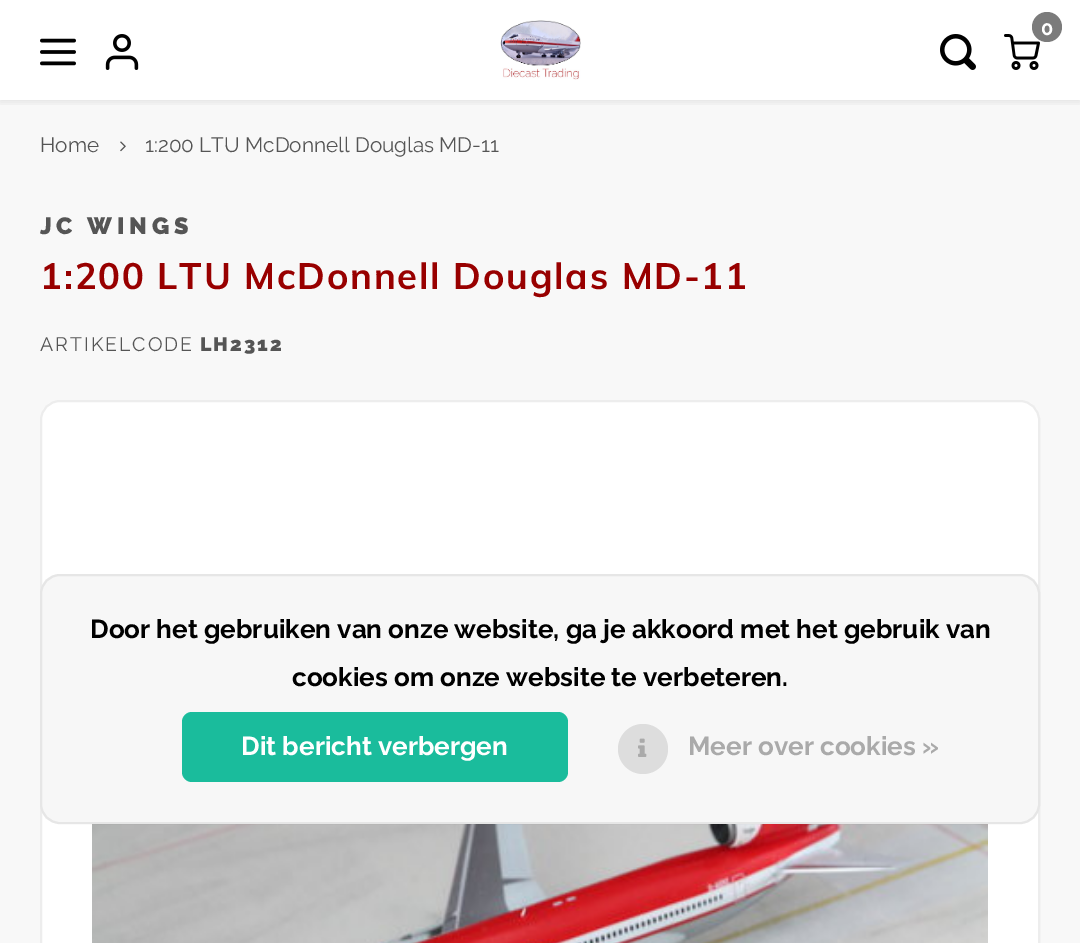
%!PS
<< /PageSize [1080 943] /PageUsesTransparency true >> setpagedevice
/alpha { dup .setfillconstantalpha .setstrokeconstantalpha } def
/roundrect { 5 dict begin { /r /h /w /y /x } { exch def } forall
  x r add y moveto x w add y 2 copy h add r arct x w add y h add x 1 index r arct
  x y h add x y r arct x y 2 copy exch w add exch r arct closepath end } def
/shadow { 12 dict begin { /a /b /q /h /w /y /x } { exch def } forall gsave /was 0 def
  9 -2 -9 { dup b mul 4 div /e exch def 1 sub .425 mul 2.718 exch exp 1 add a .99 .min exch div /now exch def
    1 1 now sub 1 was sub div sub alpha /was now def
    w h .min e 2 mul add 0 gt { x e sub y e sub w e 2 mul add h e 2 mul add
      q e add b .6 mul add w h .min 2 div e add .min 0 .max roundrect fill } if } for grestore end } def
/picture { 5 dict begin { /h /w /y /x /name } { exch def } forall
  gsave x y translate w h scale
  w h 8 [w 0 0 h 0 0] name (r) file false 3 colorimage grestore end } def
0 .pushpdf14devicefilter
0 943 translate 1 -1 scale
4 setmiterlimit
1 setgray
0 0 1080 943 rectfill
0.973 setgray
0 100 1080 843 rectfill
gsave
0 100 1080 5 rectclip
0 setgray
0 2 1080 100 0 4 0.08 shadow
grestore
(img1.rgb) 500 20 81 60 picture
(img2.rgb) 1004 34 36 36 picture
0.482 setgray
newpath 1047 27 15 0 360 arc closepath fill
/Raleway-Bold [20 0 0 -20 0 0] selectfont
1 setgray
1041 35 moveto (0) show
(img3.rgb) 940 34 36 36 picture
(img4.rgb) 40 38 36 28 picture
(img5.rgb) 105 34 34 36 picture
/Raleway-Regular [20.75 0 0 -20.75 0 0] selectfont
0.333 setgray
40 152 moveto (Home) show
(img6.rgb) 120 141 6 11 picture
145 152 moveto (1:200 LTU McDonnell Douglas MD-11) show
/Raleway-Black [23.5 0 0 -23.5 0 0] selectfont
40 234 moveto 4.75 0 (JC WINGS) ashow
/Muli-Bold [36.4 0 0 -36.4 0 0] selectfont
0.596 0 0 setrgbcolor
40 289 moveto 1.8 0 (1:200 LTU McDonnell Douglas MD-11) ashow
/Raleway-Regular [19.5 0 0 -19.5 0 0] selectfont
0.333 setgray
40 351 moveto 2 0 (ARTIKELCODE) ashow
/Raleway-Black [19.5 0 0 -19.5 0 0] selectfont
200 351 moveto 2 0 (LH2312) ashow
1 setgray
40 400 1000 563 20 roundrect fill
0.07 alpha
0 setgray
2 setlinewidth
41 401 998 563 19 roundrect stroke
1 alpha
(img7.rgb) 92 824 896 119 picture
0.969 setgray
40 574 1000 250 20 roundrect fill
0.07 alpha
0 setgray
41 575 998 248 19 roundrect stroke
/Raleway-Bold [26 0 0 -26 0 0] selectfont
1 alpha
90 638 moveto (Door het gebruiken van onze website, ga je akkoord met het gebruik van) show
292 686 moveto (cookies om onze website te verbeteren.) show
0.102 0.737 0.612 setrgbcolor
182 712 386 70 10 roundrect fill
1 setgray
241 755 moveto (Dit bericht verbergen) show
0.867 setgray
newpath 643 749 25 0 360 arc closepath fill
(img8.rgb) 638 738 9 19 picture
0.667 setgray
688 755 moveto (Meer over cookies ») show
.poppdf14devicefilter showpage
